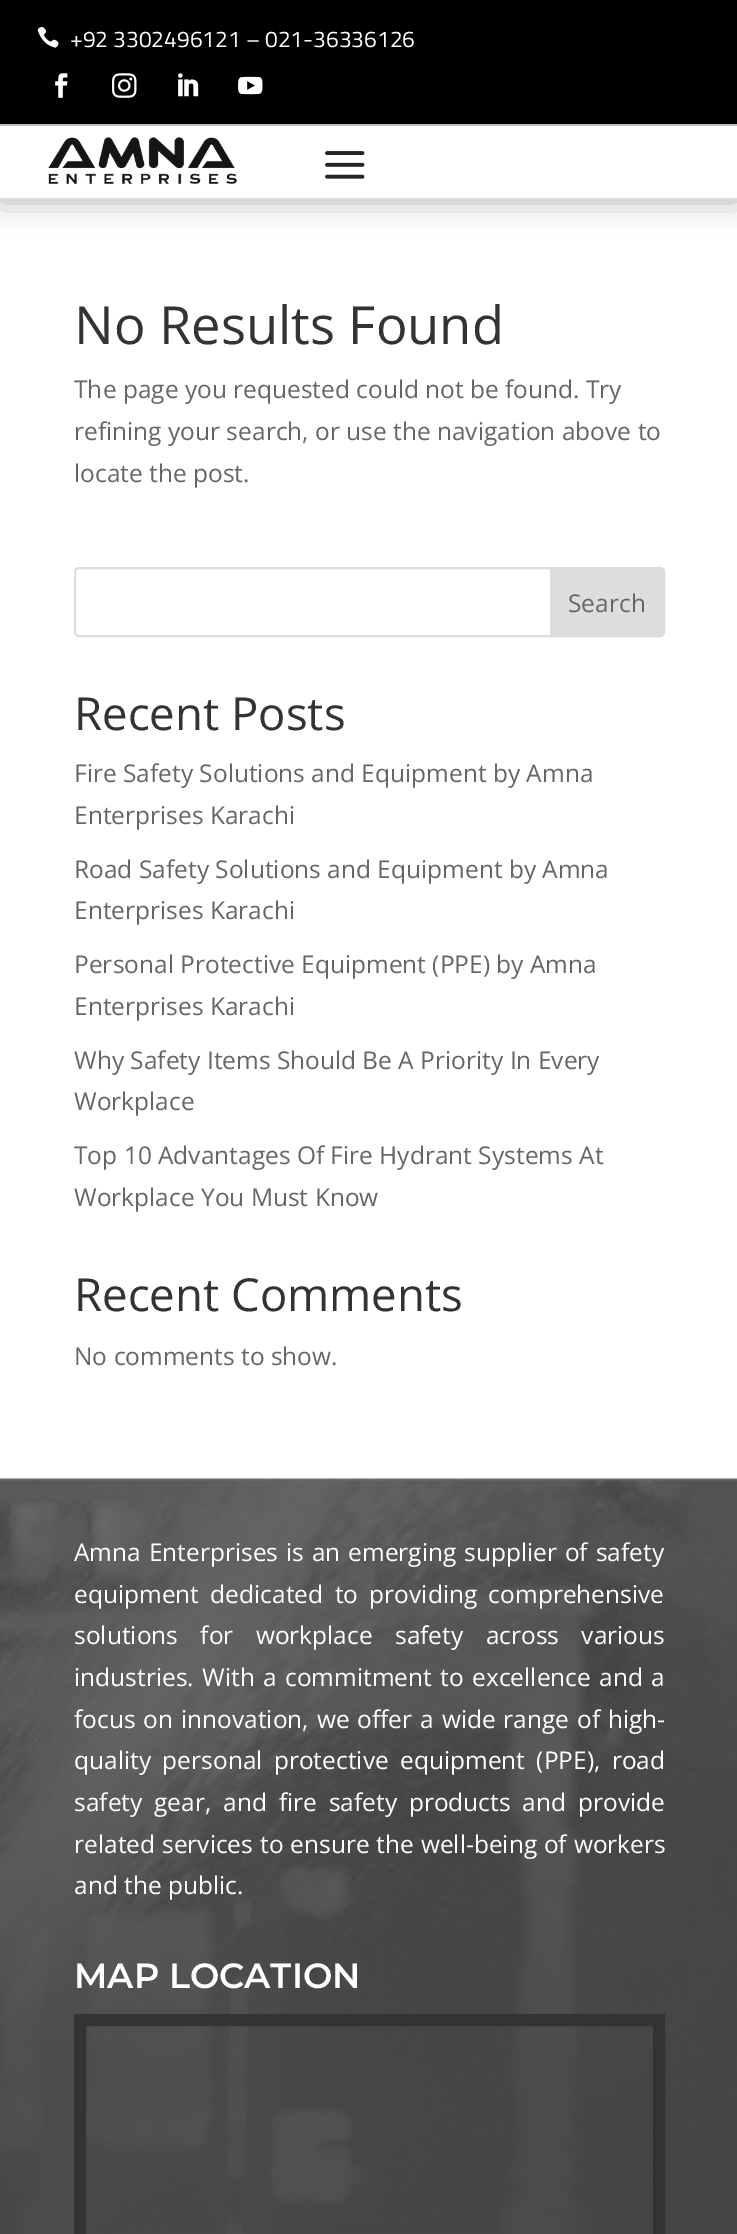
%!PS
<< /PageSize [737 2234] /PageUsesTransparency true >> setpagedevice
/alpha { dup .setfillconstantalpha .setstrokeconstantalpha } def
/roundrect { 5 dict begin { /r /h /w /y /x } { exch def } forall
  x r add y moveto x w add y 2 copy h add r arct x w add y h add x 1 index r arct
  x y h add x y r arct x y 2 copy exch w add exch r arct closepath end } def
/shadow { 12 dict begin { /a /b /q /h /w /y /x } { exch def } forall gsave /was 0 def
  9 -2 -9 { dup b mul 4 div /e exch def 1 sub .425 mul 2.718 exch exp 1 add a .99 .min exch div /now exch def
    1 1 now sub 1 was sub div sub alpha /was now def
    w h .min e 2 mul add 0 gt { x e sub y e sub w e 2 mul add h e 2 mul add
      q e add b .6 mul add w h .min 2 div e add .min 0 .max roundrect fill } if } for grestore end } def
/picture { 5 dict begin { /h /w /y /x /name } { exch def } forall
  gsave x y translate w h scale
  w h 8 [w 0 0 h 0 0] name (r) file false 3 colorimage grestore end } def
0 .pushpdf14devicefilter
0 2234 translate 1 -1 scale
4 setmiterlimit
1 setgray
0 0 737 2234 rectfill
0 setgray
0 0 737 124 rectfill
0.839 setgray
0 124 737 2 rectfill
(img1.rgb) 37 26 22 22 picture
/TitilliumWeb-Regular [22.75 0 0 -22.75 0 0] selectfont
1 setgray
70 47 moveto (+92 3302496121 – 021-36336126) show
(img2.rgb) 55 73 13 25 picture
(img3.rgb) 112 73 25 25 picture
(img4.rgb) 178 73 21 24 picture
(img5.rgb) 238 76 25 19 picture
gsave
newpath 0 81 moveto 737 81 lineto 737 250 lineto 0 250 lineto closepath 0 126 moveto 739 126 lineto 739 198 lineto 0 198 lineto closepath eoclip newpath
0 setgray
0 130 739 71 0 16 0.3 shadow
grestore
37 197 665 1 rectfill
(img6.rgb) 48 137 189 48 picture
(img7.rgb) 325 151 40 28 picture
/OpenSans-Regular [52.5 0 0 -52.5 0 0] selectfont
0.2 setgray
74 344 moveto (No Results Found) show
/OpenSans-Regular [24.5 0 0 -24.5 0 0] selectfont
0.4 setgray
74 398 moveto (The page you requested could not be found. Try) show
74 440 moveto (refining your search, or use the navigation above to) show
74 482 moveto (locate the post.) show
0.867 setgray
2 setlinewidth
75 568 589 68 4 roundrect stroke
newpath 551 568 moveto 660 568 lineto 662 568 664 570 664 572 curveto 664 632 lineto 664 634 662 636 660 636 curveto 551 636 lineto closepath gsave fill grestore
stroke
0.4 setgray
568 612 moveto (Search) show
/OpenSans-Regular [45.5 0 0 -45.5 0 0] selectfont
0.2 setgray
74 730 moveto (Recent Posts) show
/OpenSans-Regular [24.5 0 0 -24.5 0 0] selectfont
0.4 setgray
74 782 moveto (Fire Safety Solutions and Equipment by Amna) show
74 824 moveto (Enterprises Karachi) show
74 878 moveto (Road Safety Solutions and Equipment by Amna) show
74 919 moveto (Enterprises Karachi) show
74 973 moveto (Personal Protective Equipment \(PPE\) by Amna) show
74 1015 moveto (Enterprises Karachi) show
74 1069 moveto (Why Safety Items Should Be A Priority In Every) show
74 1110 moveto (Workplace) show
74 1164 moveto (Top 10 Advantages Of Fire Hydrant Systems At) show
74 1206 moveto (Workplace You Must Know) show
/OpenSans-Regular [45.5 0 0 -45.5 0 0] selectfont
0.2 setgray
74 1311 moveto (Recent Comments) show
/OpenSans-Regular [24.5 0 0 -24.5 0 0] selectfont
0.4 setgray
74 1365 moveto (No comments to show.) show
(img8.rgb) 0 1478 737 756 picture
1 setgray
74 1561 moveto 1.5 0 32 (Amna Enterprises is an emerging supplier of safety) widthshow
74 1603 moveto 5 0 32 (equipment dedicated to providing comprehensive) widthshow
74 1644 moveto 16 0 32 (solutions for workplace safety across various) widthshow
74 1686 moveto 2 0 32 (industries. With a commitment to excellence and a) widthshow
74 1728 moveto 1.5 0 32 (focus on innovation, we offer a wide range of high-) widthshow
74 1769 moveto 5 0 32 (quality personal protective equipment \(PPE\), road) widthshow
74 1811 moveto 5.5 0 32 (safety gear, and fire safety products and provide) widthshow
74 1853 moveto 0.5 0 32 (related services to ensure the well-being of workers) widthshow
74 1894 moveto (and the public.) show
/Montserrat-SemiBold [35 0 0 -35 0 0] selectfont
74 1988 moveto (MAP LOCATION) show
0.2 setgray
12 setlinewidth
80 2020 579 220 rectstroke
.poppdf14devicefilter showpage
